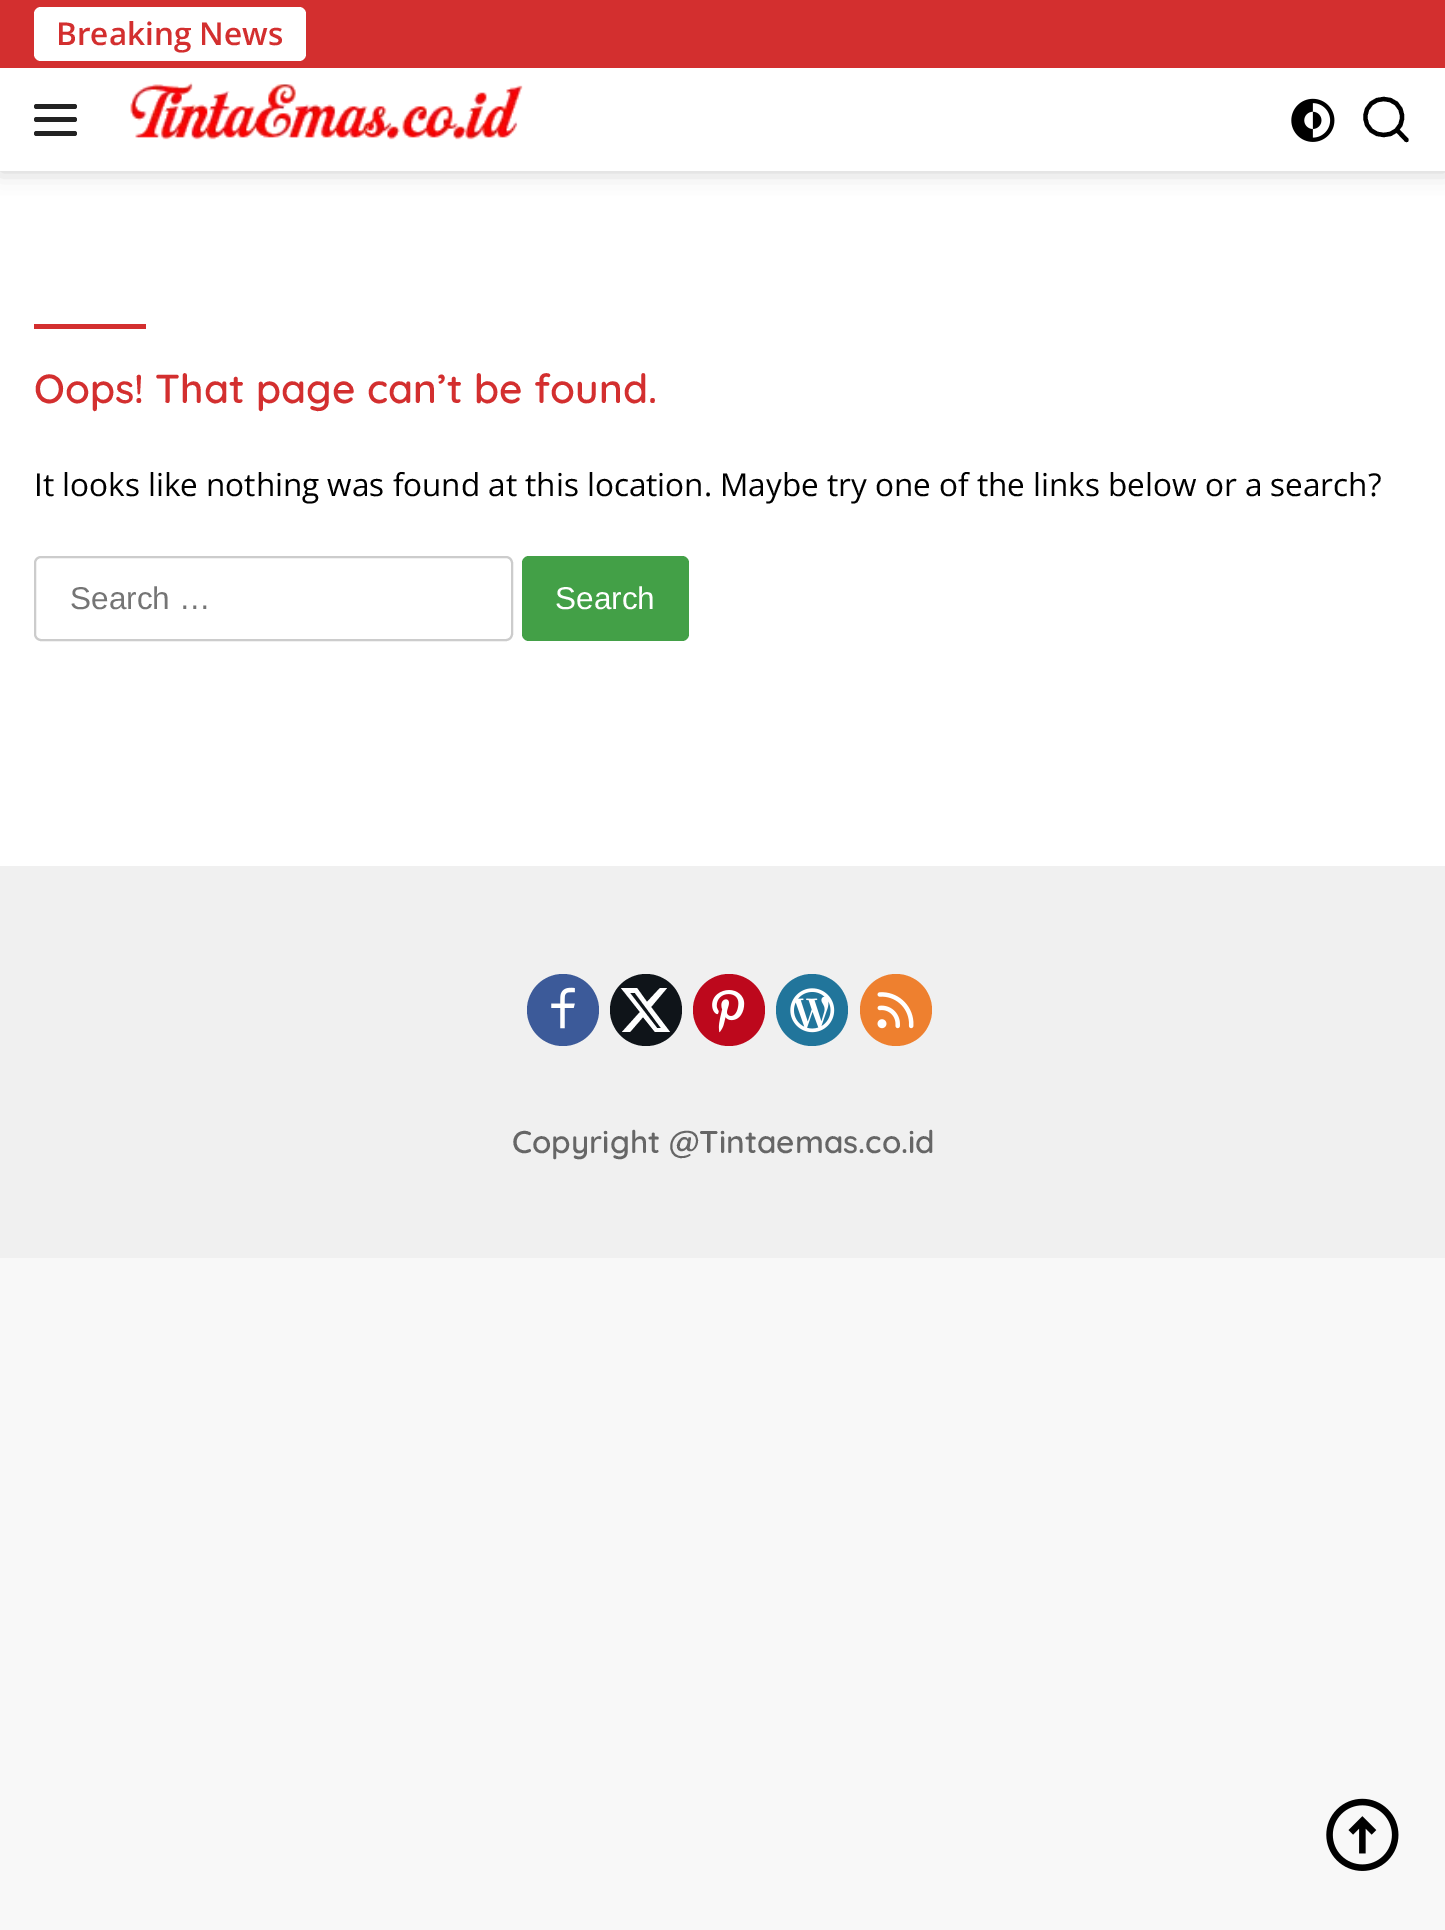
%!PS
<< /PageSize [1445 1930] /PageUsesTransparency true >> setpagedevice
/alpha { dup .setfillconstantalpha .setstrokeconstantalpha } def
/roundrect { 5 dict begin { /r /h /w /y /x } { exch def } forall
  x r add y moveto x w add y 2 copy h add r arct x w add y h add x 1 index r arct
  x y h add x y r arct x y 2 copy exch w add exch r arct closepath end } def
/shadow { 12 dict begin { /a /b /q /h /w /y /x } { exch def } forall gsave /was 0 def
  9 -2 -9 { dup b mul 4 div /e exch def 1 sub .425 mul 2.718 exch exp 1 add a .99 .min exch div /now exch def
    1 1 now sub 1 was sub div sub alpha /was now def
    w h .min e 2 mul add 0 gt { x e sub y e sub w e 2 mul add h e 2 mul add
      q e add b .6 mul add w h .min 2 div e add .min 0 .max roundrect fill } if } for grestore end } def
/picture { 5 dict begin { /h /w /y /x /name } { exch def } forall
  gsave x y translate w h scale
  w h 8 [w 0 0 h 0 0] name (r) file false 3 colorimage grestore end } def
0 .pushpdf14devicefilter
0 1930 translate 1 -1 scale
4 setmiterlimit
0.973 setgray
0 0 1445 1930 rectfill
1 setgray
0 171 1445 695 rectfill
0 setgray
0 0 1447 171 0 11 0.2 shadow
1 setgray
0 68 1445 103 rectfill
0.827 0.184 0.184 setrgbcolor
0 0 1445 68 rectfill
1 setgray
34 7 272 54 7 roundrect fill
/OpenSans-SemiBold [31.5 0 0 -31.5 0 0] selectfont
0.827 0.184 0.184 setrgbcolor
56 45 moveto (Breaking News) show
0.133 setgray
34 104 43 5 2.5 roundrect fill
34 117 43 5 2.5 roundrect fill
34 131 43 5 2.5 roundrect fill
(img1.rgb) 130 82 393 58 picture
(img2.rgb) 1291 98 44 44 picture
0 setgray
4.3 setlinewidth
1 setlinecap
newpath 1406.5 140 moveto 1397 130 lineto 1402 117 moveto 1402 141 1365.5 141 1365.5 117 curveto 1365.5 93 1402 93 1402 117 curveto closepath stroke
0.827 0.184 0.184 setrgbcolor
34 324 112 5 rectfill
/Quicksand-SemiBold [40.5 0 0 -40.5 0 0] selectfont
34 403 moveto (Oops! That page can’t be found.) show
/OpenSans-Regular [31.5 0 0 -31.5 0 0] selectfont
0 setgray
34 496 moveto (It looks like nothing was found at this location. Maybe try one of the links below or a search?) show
0.8 setgray
2 setlinewidth
0 setlinecap
35 557 477 83 6 roundrect stroke
/LiberationSans-Regular [31.5 0 0 -31.5 0 0] selectfont
0.459 setgray
70 609 moveto (Search …) show
0.263 0.627 0.278 setrgbcolor
522 556 167 85 7 roundrect fill
1 setgray
555 609 moveto (Search) show
0.941 setgray
0 866 1445 392 rectfill
0.235 0.353 0.6 setrgbcolor
newpath 563 1010 36 0 360 arc closepath fill
(img3.rgb) 551 987 24 42 picture
0.059 0.078 0.098 setrgbcolor
newpath 646 1010 36 0 360 arc closepath fill
1 setgray
newpath 660 988 moveto 667 988 lineto 651 1007 lineto 670 1032 lineto 655 1032 lineto 643 1017 lineto 630 1032 lineto 622 1032 lineto 640 1012 lineto 621 988 lineto 637 988 lineto 647 1002 lineto closepath 657 1028 moveto 661 1028 lineto 635 993 lineto 630 993 lineto closepath fill
0.741 0.031 0.11 setrgbcolor
newpath 729 1010 36 0 360 arc closepath fill
(img4.rgb) 712 990 33 43 picture
0.129 0.459 0.608 setrgbcolor
newpath 812 1010 36 0 360 arc closepath fill
(img5.rgb) 790 988 45 45 picture
0.933 0.502 0.184 setrgbcolor
newpath 896 1010 36 0 360 arc closepath fill
(img6.rgb) 877 992 37 37 picture
/Quicksand-SemiBold [31.5 0 0 -31.5 0 0] selectfont
0.4 setgray
512 1153 moveto (Copyright @Tintaemas.co.id) show
(img7.rgb) 1326 1798 73 73 picture
.poppdf14devicefilter showpage
